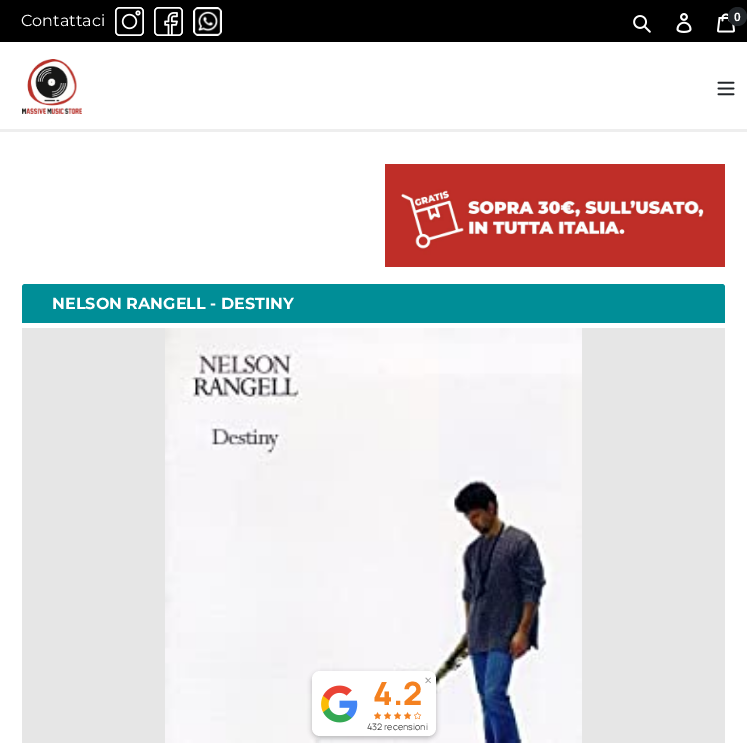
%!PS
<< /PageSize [747 751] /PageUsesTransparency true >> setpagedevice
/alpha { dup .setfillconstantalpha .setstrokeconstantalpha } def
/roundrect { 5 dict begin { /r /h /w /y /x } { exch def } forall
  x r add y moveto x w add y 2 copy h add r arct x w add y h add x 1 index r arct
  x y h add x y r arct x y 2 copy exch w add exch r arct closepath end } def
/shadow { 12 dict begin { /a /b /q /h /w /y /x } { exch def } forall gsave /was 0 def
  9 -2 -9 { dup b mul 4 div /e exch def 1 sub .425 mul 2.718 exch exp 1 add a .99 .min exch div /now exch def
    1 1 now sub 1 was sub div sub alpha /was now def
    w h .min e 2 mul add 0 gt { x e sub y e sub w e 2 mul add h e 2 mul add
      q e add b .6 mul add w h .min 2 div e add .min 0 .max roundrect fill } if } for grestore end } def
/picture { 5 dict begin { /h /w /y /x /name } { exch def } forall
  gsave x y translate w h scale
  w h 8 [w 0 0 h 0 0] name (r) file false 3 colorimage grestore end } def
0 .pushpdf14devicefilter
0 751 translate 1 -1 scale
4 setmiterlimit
1 setgray
0 0 747 751 rectfill
0 setgray
0 0 747 42 rectfill
/Montserrat-Regular [16 0 0 -16 0 0] selectfont
1 setgray
21 26 moveto (Contattaci) show
(img1.rgb) 115 7 29 29 picture
(img2.rgb) 154 7 29 29 picture
(img3.rgb) 193 7 29 29 picture
(img4.rgb) 633 15 18 18 picture
(img5.rgb) 676 13 16 20 picture
(img6.rgb) 717 13 18 20 picture
0.129 0.145 0.161 setrgbcolor
newpath 737.5 16.5 9.5 0 360 arc closepath fill
/LiberationSans-Bold [12 0 0 -12 0 0] selectfont
1 setgray
734 21 moveto (0) show
0.933 setgray
0 129 747 3 rectfill
(img7.rgb) 22 59 60 55 picture
(img8.rgb) 717 81 18 15 picture
(img9.rgb) 385 164 340 103 picture
0 0.557 0.592 setrgbcolor
newpath 25 284 moveto 722 284 lineto 723.5 284 725 285.5 725 287 curveto 725 323 lineto 22 323 lineto 22 287 lineto 22 285.5 23.5 284 25 284 curveto closepath fill
/Montserrat-Bold [16 0 0 -16 0 0] selectfont
1 setgray
52 309 moveto (NELSON RANGELL - DESTINY) show
0.902 setgray
22 328 703 415 rectfill
(img10.rgb) 165 328 417 415 picture
0 setgray
312 673 124 65 8 2.5 0.26 shadow
1 setgray
312 671 124 65 8 roundrect fill
/DejaVuSans-Regular [10 0 0 -10 0 0] selectfont
0.627 setgray
424 684 moveto (✕) show
(img11.rgb) 321 685 37 38 picture
/Manrope-ExtraBold [32 0 0 -32 0 0] selectfont
0.957 0.506 0.125 setrgbcolor
373 705 moveto (4.2) show
(img12.rgb) 374 712 8 8 picture
(img12.rgb) 384 712 8 8 picture
(img12.rgb) 394 712 8 8 picture
(img12.rgb) 404 712 8 8 picture
(img13.rgb) 414 712 8 8 picture
/Manrope-Regular [9 0 0 -9 0 0] selectfont
0.251 setgray
367 730 moveto (432 recensioni) show
.poppdf14devicefilter showpage
